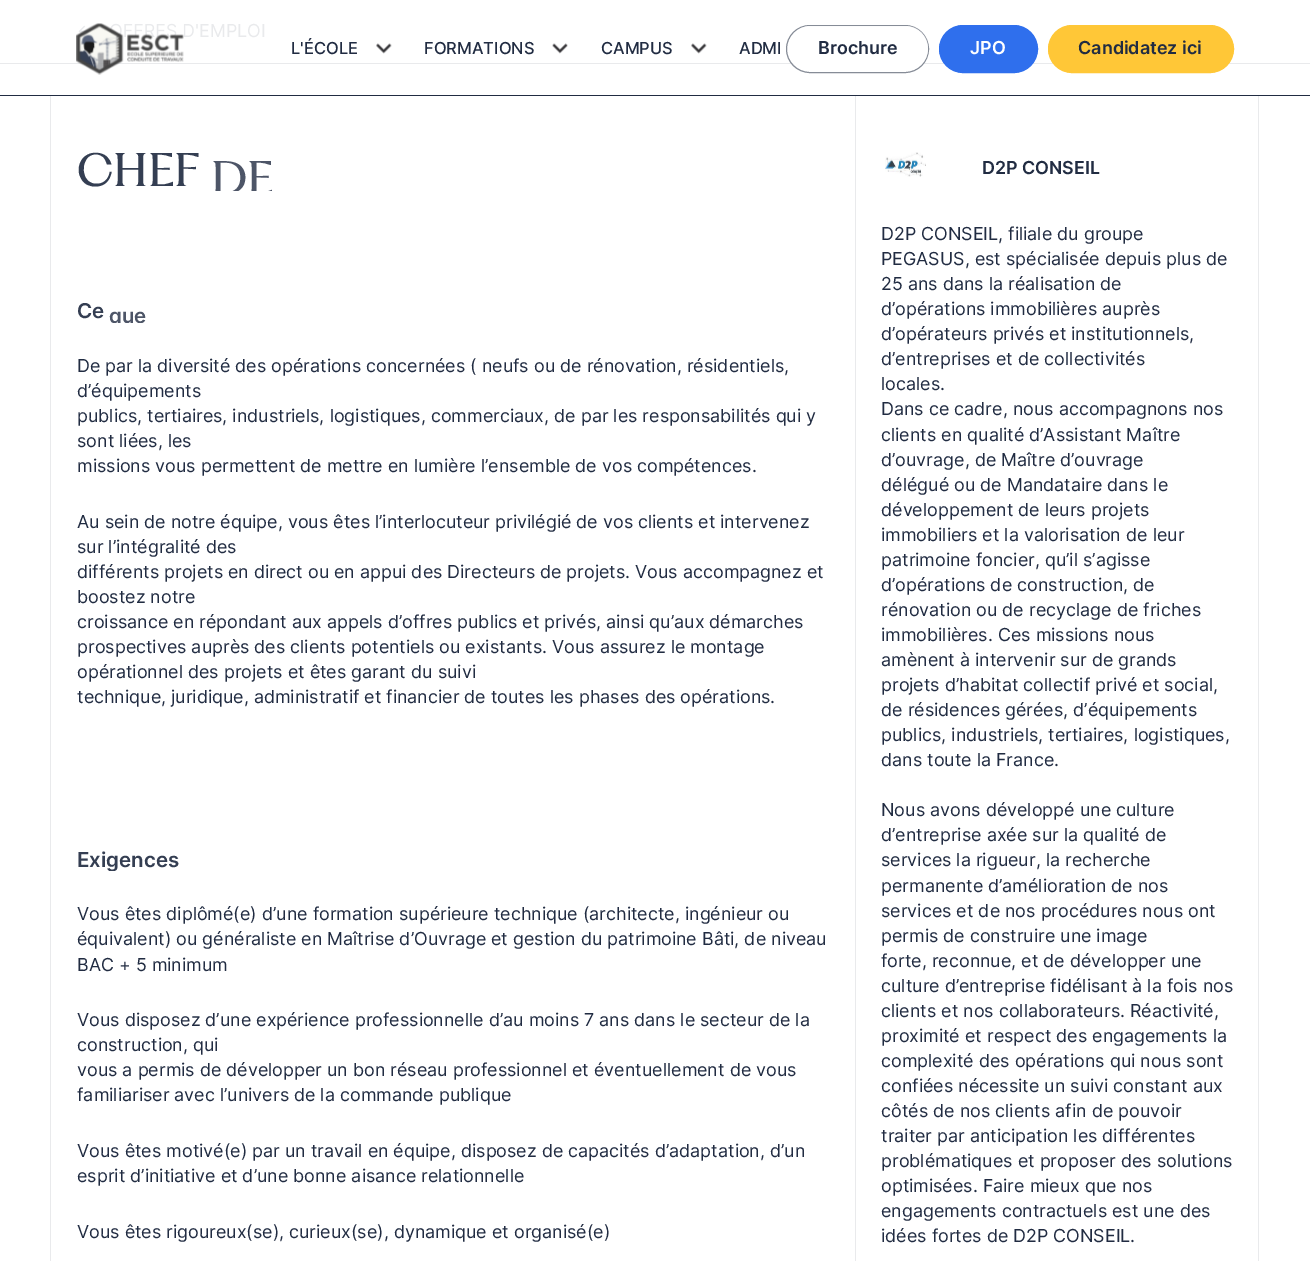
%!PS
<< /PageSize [1310 1261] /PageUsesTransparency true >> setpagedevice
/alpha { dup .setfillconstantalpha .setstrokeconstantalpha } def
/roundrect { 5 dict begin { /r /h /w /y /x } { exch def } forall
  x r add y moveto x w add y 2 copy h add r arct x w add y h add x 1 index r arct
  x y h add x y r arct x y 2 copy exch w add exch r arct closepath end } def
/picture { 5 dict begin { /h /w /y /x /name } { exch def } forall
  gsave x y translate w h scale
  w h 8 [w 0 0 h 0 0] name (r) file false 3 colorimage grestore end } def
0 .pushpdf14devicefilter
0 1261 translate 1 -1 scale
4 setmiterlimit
1 setgray
0 0 1310 1261 rectfill
0.914 0.918 0.925 setrgbcolor
0 63 1310 1 rectfill
50 96 1 1165 rectfill
0.992 setgray
50 63 1 1 rectfill
0.914 0.918 0.925 setrgbcolor
50 63 1 1 rectfill
1 setgray
453 63 1 1 rectfill
0.914 0.918 0.925 setrgbcolor
453 63 1 1 rectfill
855 96 1 1165 rectfill
1258 96 1 1165 rectfill
0.992 setgray
1258 63 1 1 rectfill
0.914 0.918 0.925 setrgbcolor
1258 63 1 1 rectfill
/Inter-Regular [17.9 0 0 -17.9 0 0] selectfont
109 37 moveto (OFFRES D'EMPLOI) show
/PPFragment-Regular [43.5 0 0 -43.5 0 0] selectfont
0.204 0.243 0.322 setrgbcolor
77 186 moveto (CHEF) show
gsave
76 139 755 52 rectclip
0.302 0.333 0.404 setrgbcolor
211 194 moveto (DE) show
grestore
/Inter-SemiBold [20.5 0 0 -20.5 0 0] selectfont
77 318 moveto (Ce) show
gsave
76 294 755 29 rectclip
0.302 0.333 0.404 setrgbcolor
109 323 moveto (que) show
grestore
/Inter-Regular [17.9 0 0 -17.9 0 0] selectfont
0.129 0.173 0.259 setrgbcolor
77 372 moveto (De par la diversité des opérations concernées \( neufs ou de rénovation, résidentiels,) show
77 397 moveto (d’équipements) show
77 422 moveto (publics, tertiaires, industriels, logistiques, commerciaux, de par les responsabilités qui y) show
77 447 moveto (sont liées, les) show
77 472 moveto (missions vous permettent de mettre en lumière l’ensemble de vos compétences.) show
77 528 moveto (Au sein de notre équipe, vous êtes l’interlocuteur privilégié de vos clients et intervenez) show
77 553 moveto (sur l’intégralité des) show
77 578 moveto (différents projets en direct ou en appui des Directeurs de projets. Vous accompagnez et) show
77 603 moveto (boostez notre) show
77 628 moveto (croissance en répondant aux appels d’offres publics et privés, ainsi qu’aux démarches) show
77 653 moveto (prospectives auprès des clients potentiels ou existants. Vous assurez le montage) show
77 678 moveto (opérationnel des projets et êtes garant du suivi) show
77 703 moveto (technique, juridique, administratif et financier de toutes les phases des opérations.) show
gsave
76 843 755 28 rectclip
/Inter-SemiBold [20.5 0 0 -20.5 0 0] selectfont
0.204 0.243 0.322 setrgbcolor
77 867 moveto (Exigences) show
grestore
77 920 moveto (Vous êtes diplômé\(e\) d’une formation supérieure technique \(architecte, ingénieur ou) show
77 945 moveto (équivalent\) ou généraliste en Maîtrise d’Ouvrage et gestion du patrimoine Bâti, de niveau) show
77 971 moveto (BAC + 5 minimum) show
77 1026 moveto (Vous disposez d’une expérience professionnelle d’au moins 7 ans dans le secteur de la) show
77 1051 moveto (construction, qui) show
77 1076 moveto (vous a permis de développer un bon réseau professionnel et éventuellement de vous) show
77 1101 moveto (familiariser avec l’univers de la commande publique) show
77 1157 moveto (Vous êtes motivé\(e\) par un travail en équipe, disposez de capacités d’adaptation, d’un) show
77 1182 moveto (esprit d’initiative et d’une bonne aisance relationnelle) show
77 1238 moveto (Vous êtes rigoureux\(se\), curieux\(se\), dynamique et organisé\(e\)) show
(img1.rgb) 885 152 41 25 picture
/Inter-SemiBold [17.9 0 0 -17.9 0 0] selectfont
982 174 moveto (D2P CONSEIL) show
/Inter-Regular [17.9 0 0 -17.9 0 0] selectfont
881 240 moveto (D2P CONSEIL, filiale du groupe) show
881 265 moveto (PEGASUS, est spécialisée depuis plus de) show
881 290 moveto (25 ans dans la réalisation de) show
881 315 moveto (d’opérations immobilières auprès) show
881 340 moveto (d’opérateurs privés et institutionnels,) show
881 365 moveto (d’entreprises et de collectivités) show
881 390 moveto (locales.) show
881 415 moveto (Dans ce cadre, nous accompagnons nos) show
881 441 moveto (clients en qualité d’Assistant Maître) show
881 466 moveto (d’ouvrage, de Maître d’ouvrage) show
881 491 moveto (délégué ou de Mandataire dans le) show
881 516 moveto (développement de leurs projets) show
881 541 moveto (immobiliers et la valorisation de leur) show
881 566 moveto (patrimoine foncier, qu’il s’agisse) show
881 591 moveto (d’opérations de construction, de) show
881 616 moveto (rénovation ou de recyclage de friches) show
881 641 moveto (immobilières. Ces missions nous) show
881 666 moveto (amènent à intervenir sur de grands) show
881 691 moveto (projets d’habitat collectif privé et social,) show
881 716 moveto (de résidences gérées, d’équipements) show
881 741 moveto (publics, industriels, tertiaires, logistiques,) show
881 766 moveto (dans toute la France.) show
881 816 moveto (Nous avons développé une culture) show
881 841 moveto (d’entreprise axée sur la qualité de) show
881 866 moveto (services la rigueur, la recherche) show
881 892 moveto (permanente d’amélioration de nos) show
881 917 moveto (services et de nos procédures nous ont) show
881 942 moveto (permis de construire une image) show
881 967 moveto (forte, reconnue, et de développer une) show
881 992 moveto (culture d’entreprise fidélisant à la fois nos) show
881 1017 moveto (clients et nos collaborateurs. Réactivité,) show
881 1042 moveto (proximité et respect des engagements la) show
881 1067 moveto (complexité des opérations qui nous sont) show
881 1092 moveto (confiées nécessite un suivi constant aux) show
881 1117 moveto (côtés de nos clients afin de pouvoir) show
881 1142 moveto (traiter par anticipation les différentes) show
881 1167 moveto (problématiques et proposer des solutions) show
881 1192 moveto (optimisées. Faire mieux que nos) show
881 1217 moveto (engagements contractuels est une des) show
881 1242 moveto (idées fortes de D2P CONSEIL.) show
(img2.rgb) 76 23 108 52 picture
/Inter-Medium [16.5 0 0 -16.5 0 0] selectfont
291 54 moveto (L'ÉCOLE) show
(img3.rgb) 376 43 16 11 picture
424 54 moveto (FORMATIONS) show
(img4.rgb) 552 43 16 11 picture
601 54 moveto (CAMPUS) show
(img3.rgb) 691 43 16 11 picture
739 54 moveto (ADMI) show
(img3.rgb) 851 43 16 11 picture
0.9 alpha
1 setgray
786 25 143 48 24 roundrect fill
0.54 alpha
0.125 0.169 0.247 setrgbcolor
786.5 25.5 142 47 23.5 roundrect stroke
0.9 alpha
1 setgray
788 26 140 45 22.5 roundrect fill
/Inter-SemiBold [17.9 0 0 -17.9 0 0] selectfont
1 alpha
0.129 0.173 0.259 setrgbcolor
818 54 moveto (Brochure) show
0.184 0.435 0.929 setrgbcolor
939.5 25.5 98 47 23.5 roundrect gsave fill grestore
stroke
1 setgray
970 54 moveto (JPO) show
1 0.78 0.216 setrgbcolor
1048.5 25.5 185 47 23.5 roundrect gsave fill grestore
stroke
0.129 0.173 0.259 setrgbcolor
1078 54 moveto (Candidatez ici) show
0 95 1310 1 rectfill
.poppdf14devicefilter showpage
